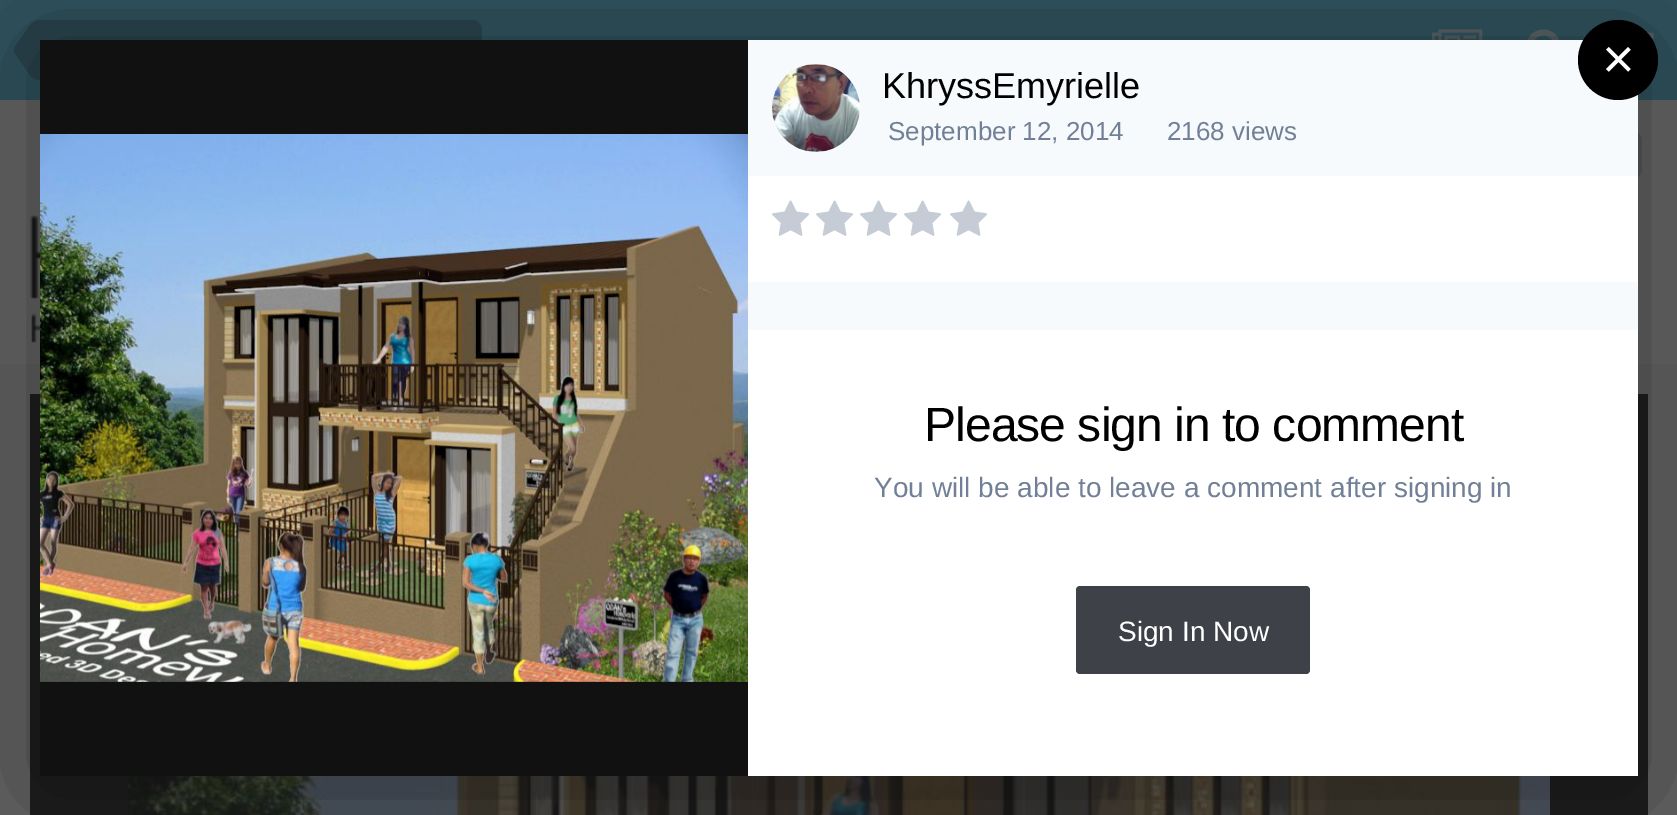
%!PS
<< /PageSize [1677 815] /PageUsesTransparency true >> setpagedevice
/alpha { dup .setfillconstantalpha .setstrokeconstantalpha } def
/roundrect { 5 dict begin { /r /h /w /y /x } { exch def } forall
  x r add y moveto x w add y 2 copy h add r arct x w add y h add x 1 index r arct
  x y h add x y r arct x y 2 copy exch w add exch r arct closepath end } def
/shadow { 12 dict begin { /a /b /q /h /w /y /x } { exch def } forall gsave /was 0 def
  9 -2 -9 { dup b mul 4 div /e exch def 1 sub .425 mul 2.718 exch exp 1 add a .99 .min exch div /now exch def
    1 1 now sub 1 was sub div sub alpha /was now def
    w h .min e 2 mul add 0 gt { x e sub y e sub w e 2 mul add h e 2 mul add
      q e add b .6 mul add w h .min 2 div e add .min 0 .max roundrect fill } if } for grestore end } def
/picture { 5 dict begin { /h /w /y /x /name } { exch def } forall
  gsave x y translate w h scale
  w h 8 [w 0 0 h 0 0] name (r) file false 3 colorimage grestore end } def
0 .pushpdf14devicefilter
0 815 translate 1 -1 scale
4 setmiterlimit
0.38 setgray
0 0 1677 815 rectfill
0.192 0.322 0.365 setrgbcolor
0 0 1677 100 rectfill
0.169 0.263 0.298 setrgbcolor
newpath 40 20 moveto 472 20 lineto 477.5 20 482 24.5 482 30 curveto 482 70 lineto 482 75.5 477.5 80 472 80 curveto 40 80 lineto closepath fill
newpath 40 50 moveto 40 80 lineto 36.5 80 33 78 30 75 curveto 15 53.5 lineto 14.5 52.5 14 51.5 14 50 curveto closepath 40 50 moveto 14 50 lineto 14 48.5 14.5 47.5 15 46.5 curveto 30 25 lineto 33 22 36.5 20 40 20 curveto closepath fill
(img1.rgb) 1432 29 51 11 picture
(img2.rgb) 1527 29 33 11 picture
(img3.rgb) 1646 32 8 7 picture
0.392 setgray
0 100 1677 264 rectfill
(img4.rgb) 1638 132 4 46 picture
(img5.rgb) 30 210 10 142 picture
0.114 setgray
30 394 1618 421 rectfill
(img9.rgb) 128 776 1422 39 picture
0 setgray
40 50 1598 736 0 55 0.4 shadow
0.969 0.98 0.988 setrgbcolor
748 40 890 136 rectfill
0 setgray
newpath 1618 60 40 0 360 arc closepath fill
/LiberationSans-Regular [56 0 0 -56 0 0] selectfont
1 setgray
1602 78 moveto (×) show
0.067 setgray
40 40 708 736 rectfill
(img6.rgb) 40 134 708 548 picture
1 setgray
748 176 890 600 rectfill
newpath 816 108 44 0 360 arc closepath fill
(img7.rgb) 772 64 88 88 picture
/LiberationSans-Regular [36 0 0 -36 0 0] selectfont
0 setgray
882 98 moveto (KhryssEmyrielle) show
/LiberationSans-Regular [26 0 0 -26 0 0] selectfont
0.443 0.502 0.588 setrgbcolor
888 140 moveto (September 12, 2014) show
1167 140 moveto (2168 views) show
(img8.rgb) 772 200 37 36 picture
(img8.rgb) 816 200 37 36 picture
(img8.rgb) 860 200 37 36 picture
(img8.rgb) 904 200 37 36 picture
(img8.rgb) 950 200 37 36 picture
0.969 0.98 0.988 setrgbcolor
748 282 890 48 rectfill
/LiberationSans-Regular [48 0 0 -48 0 0] selectfont
0 setgray
924 441 moveto -0.95 0 (Please sign in to comment) ashow
/LiberationSans-Regular [28 0 0 -28 0 0] selectfont
0.443 0.502 0.588 setrgbcolor
874 497 moveto (You will be able to leave a comment after signing in) show
0.243 0.255 0.282 setrgbcolor
1076 586 234 88 4 roundrect fill
1 setgray
1118 641 moveto (Sign In Now) show
.poppdf14devicefilter showpage
